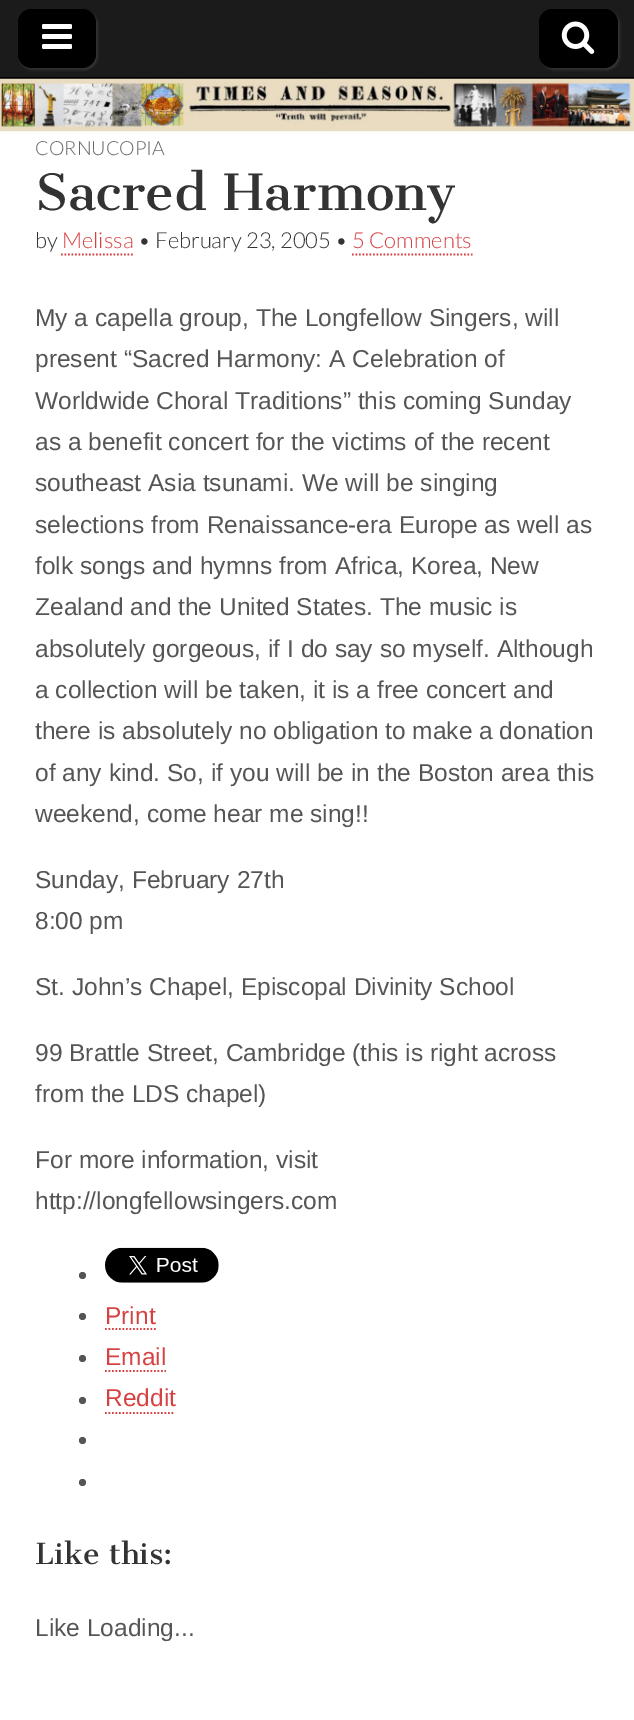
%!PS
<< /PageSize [634 1720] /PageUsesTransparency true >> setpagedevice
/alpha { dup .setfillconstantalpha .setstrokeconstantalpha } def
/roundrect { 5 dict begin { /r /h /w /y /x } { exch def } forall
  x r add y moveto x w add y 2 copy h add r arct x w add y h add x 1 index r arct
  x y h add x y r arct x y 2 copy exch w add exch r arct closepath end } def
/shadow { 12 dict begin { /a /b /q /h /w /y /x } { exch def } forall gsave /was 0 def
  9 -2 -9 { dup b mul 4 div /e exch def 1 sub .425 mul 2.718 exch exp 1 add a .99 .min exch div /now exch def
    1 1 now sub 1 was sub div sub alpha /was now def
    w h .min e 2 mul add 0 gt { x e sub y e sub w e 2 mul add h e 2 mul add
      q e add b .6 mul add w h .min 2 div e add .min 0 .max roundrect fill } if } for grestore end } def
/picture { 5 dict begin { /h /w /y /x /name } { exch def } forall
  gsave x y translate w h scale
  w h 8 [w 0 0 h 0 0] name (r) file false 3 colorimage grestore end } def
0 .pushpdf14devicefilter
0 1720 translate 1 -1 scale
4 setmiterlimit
1 setgray
0 0 634 1720 rectfill
0.106 setgray
0 0 634 77 rectfill
0 setgray
0 77 634 2 rectfill
0.2 setgray
19 11 79 59 14 1 1 shadow
0 setgray
18 9 78 59 14 roundrect fill
newpath 33 10 moveto 84 10 lineto 86 10 88 10 89 11 curveto 87 10 85 9 82 9 curveto 32 9 lineto 24 9 18 15 18 23 curveto 18 54 lineto 18 57 19 59 20 61 curveto 19 60 19 58 19 56 curveto 19 24 lineto 19 17 26 10 33 10 curveto closepath fill
(img1.rgb) 42 24 30 25 picture
0.2 setgray
541 11 79 59 14 1 1 shadow
0 setgray
539 9 79 59 14 roundrect fill
newpath 555 10 moveto 606 10 lineto 608 10 611 11 613 12 curveto 610 10 607 9 604 9 curveto 553 9 lineto 545 9 539 15 539 23 curveto 539 54 lineto 539 58 541 62 544 64 curveto 542 62 541 59 541 56 curveto 541 24 lineto 541 17 547 10 555 10 curveto closepath fill
(img2.rgb) 561 21 34 33 picture
(img3.rgb) 0 78 634 54 picture
/Lato-Light [19.5 0 0 -19.5 0 0] selectfont
0.4 setgray
35 155 moveto (CORNUCOPIA) show
/CantataOne-Regular [49 0 0 -49 0 0] selectfont
0.2 setgray
35 210 moveto (Sacred Harmony) show
/Lato-Light [22 0 0 -22 0 0] selectfont
35 248 moveto (by) show
0.839 0.259 0.259 setrgbcolor
62 248 moveto (Melissa) show
1.8 setlinewidth
[1.75 1.75] 0 setdash
newpath 61 254.5 moveto 133 254.5 lineto stroke
0.2 setgray
138 248 moveto (• February 23, 2005 •) show
0.839 0.259 0.259 setrgbcolor
352 248 moveto (5 Comments) show
newpath 352 254.5 moveto 472.5 254.5 lineto stroke
/LiberationSans-Regular [24.5 0 0 -24.5 0 0] selectfont
0.333 setgray
35 326 moveto (My a capella group, The Longfellow Singers, will) show
35 367 moveto (present “Sacred Harmony: A Celebration of) show
35 409 moveto (Worldwide Choral Traditions” this coming Sunday) show
35 450 moveto (as a benefit concert for the victims of the recent) show
35 491 moveto (southeast Asia tsunami. We will be singing) show
35 533 moveto (selections from Renaissance-era Europe as well as) show
35 574 moveto (folk songs and hymns from Africa, Korea, New) show
35 615 moveto (Zealand and the United States. The music is) show
35 657 moveto (absolutely gorgeous, if I do say so myself. Although) show
35 698 moveto (a collection will be taken, it is a free concert and) show
35 739 moveto (there is absolutely no obligation to make a donation) show
35 781 moveto (of any kind. So, if you will be in the Boston area this) show
35 822 moveto (weekend, come hear me sing!!) show
35 888 moveto (Sunday, February 27th) show
35 929 moveto (8:00 pm) show
35 995 moveto (St. John’s Chapel, Episcopal Divinity School) show
35 1061 moveto (99 Brattle Street, Cambridge \(this is right across) show
35 1102 moveto (from the LDS chapel\)) show
35 1168 moveto (For more information, visit) show
35 1209 moveto (http://longfellowsingers.com) show
newpath 82.5 1275.5 3.5 0 360 arc closepath fill
(img4.rgb) 105 1247 114 36 picture
newpath 82.5 1316.5 3.5 0 360 arc closepath fill
0.839 0.259 0.259 setrgbcolor
105 1324 moveto (Print) show
newpath 105 1329 moveto 156 1329 lineto stroke
0.333 setgray
newpath 82.5 1358.5 3.5 0 360 arc closepath fill
0.839 0.259 0.259 setrgbcolor
105 1365 moveto (Email) show
newpath 105 1371 moveto 166 1371 lineto stroke
0.333 setgray
newpath 82.5 1400.5 3.5 0 360 arc closepath fill
0.839 0.259 0.259 setrgbcolor
105 1406 moveto (Reddit) show
newpath 105 1413 moveto 175 1413 lineto stroke
0.333 setgray
newpath 82.5 1440.5 3.5 0 360 arc closepath fill
newpath 82.5 1482.5 3.5 0 360 arc closepath fill
/CantataOne-Regular [28.5 0 0 -28.5 0 0] selectfont
0.2 setgray
35 1564 moveto (Like this:) show
/LiberationSans-Regular [24.5 0 0 -24.5 0 0] selectfont
0.333 setgray
35 1636 moveto (Like Loading...) show
.poppdf14devicefilter showpage
